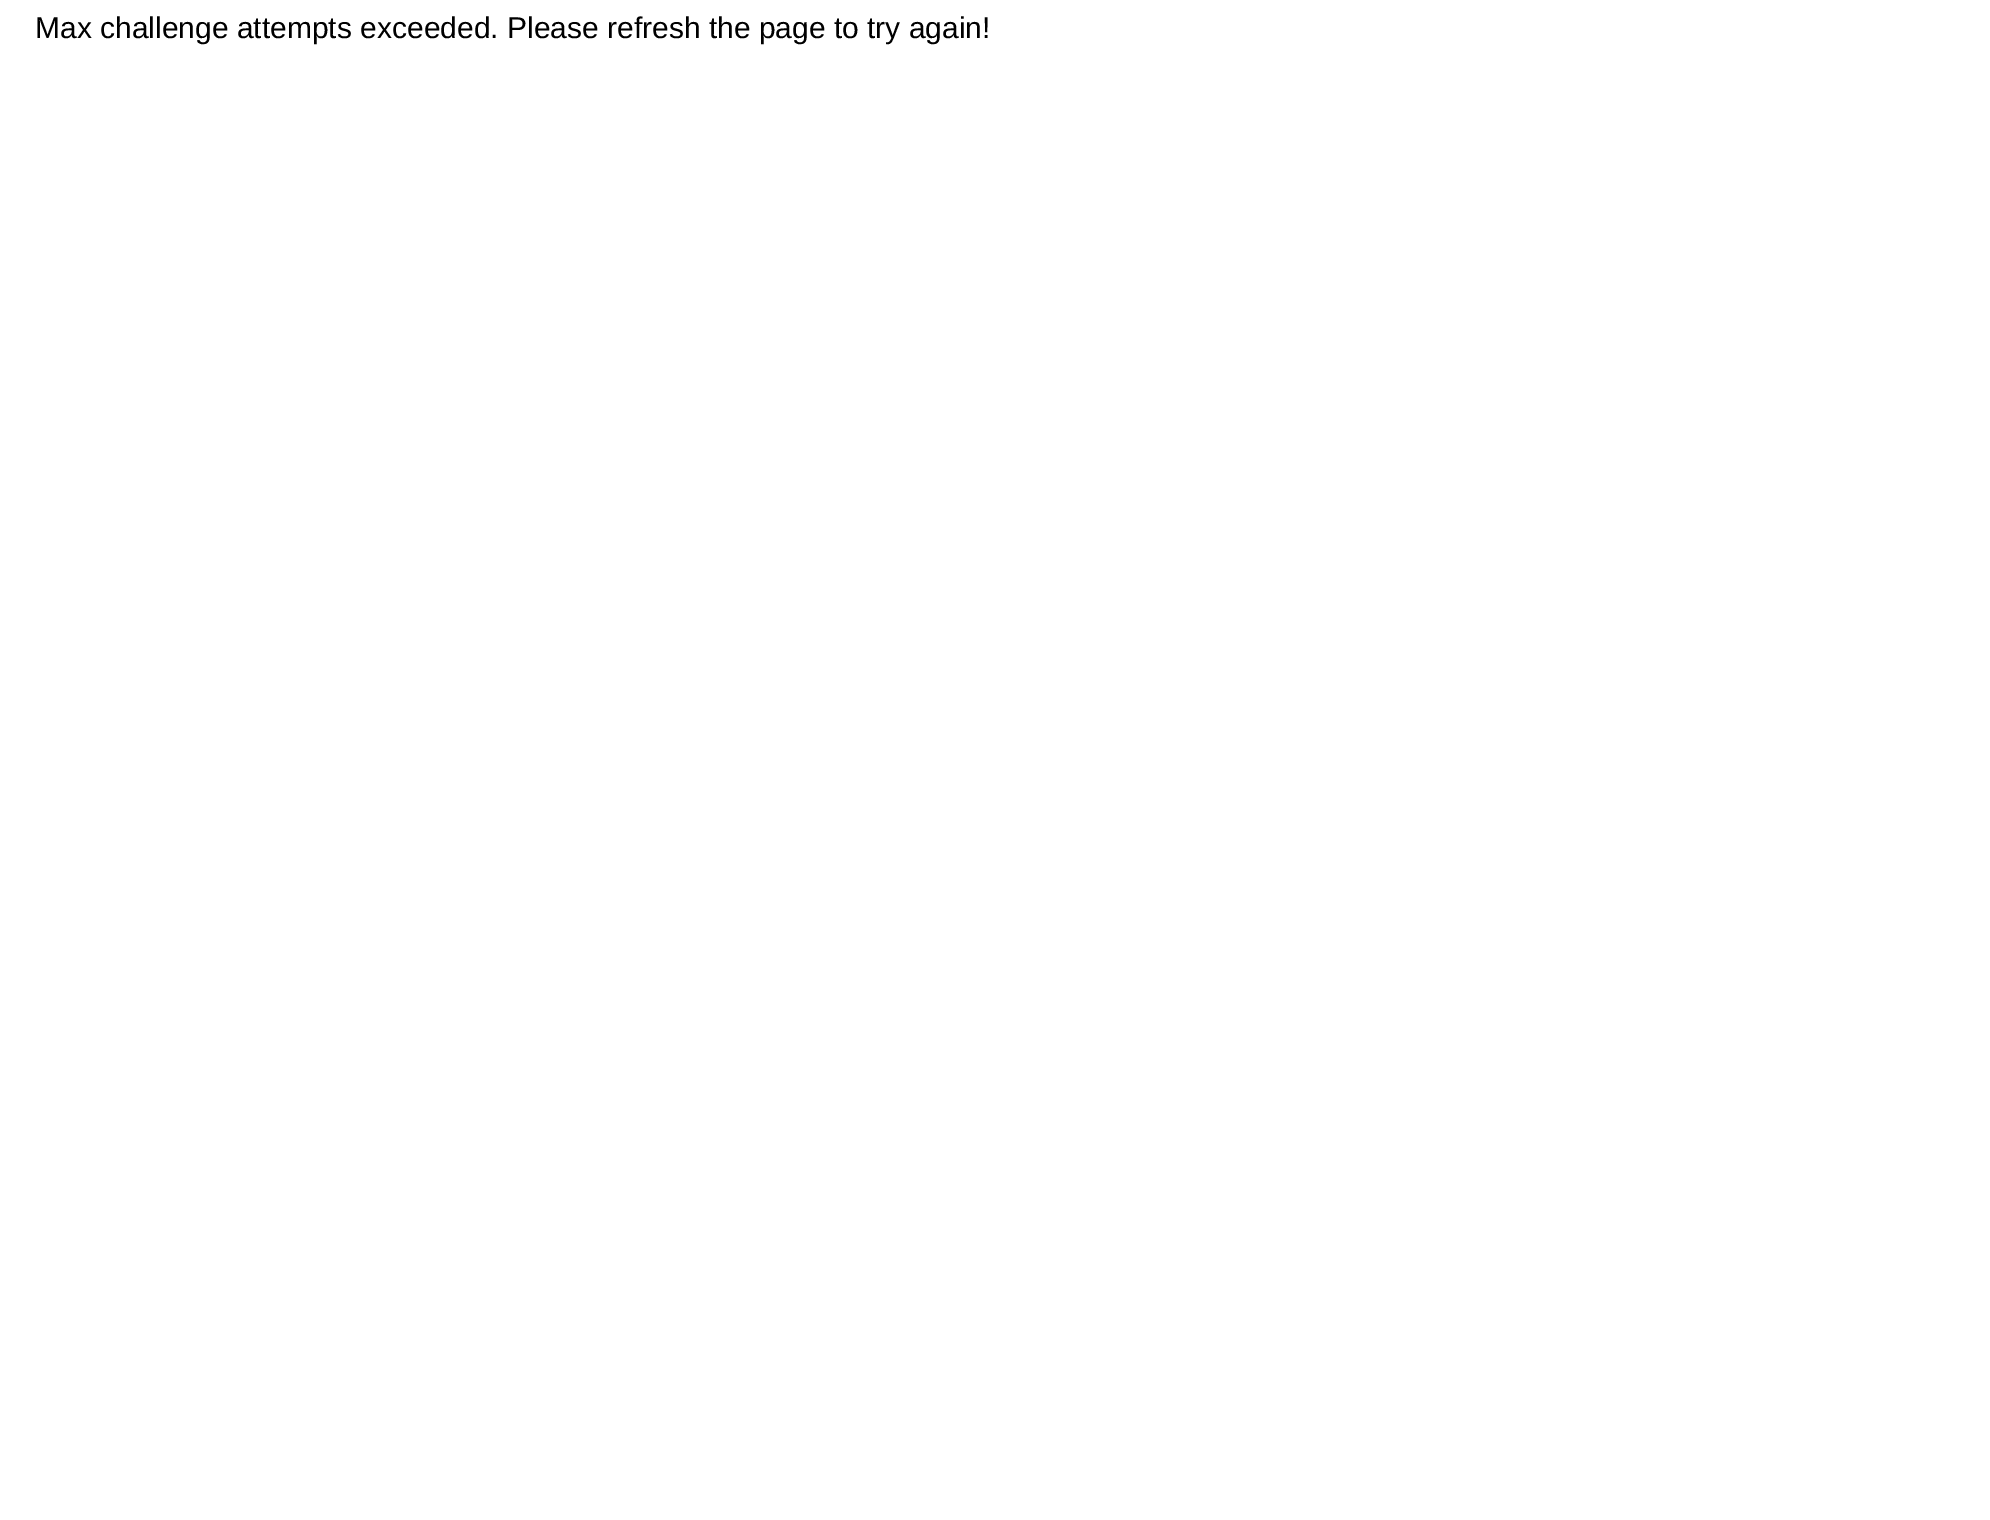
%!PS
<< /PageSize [1990 1520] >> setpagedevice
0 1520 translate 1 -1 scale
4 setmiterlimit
1 setgray
0 0 1990 1520 rectfill
/LiberationSans-Regular [30 0 0 -30 0 0] selectfont
0 setgray
35 38 moveto (Max challenge attempts exceeded. Please refresh the page to try again!) show
showpage
